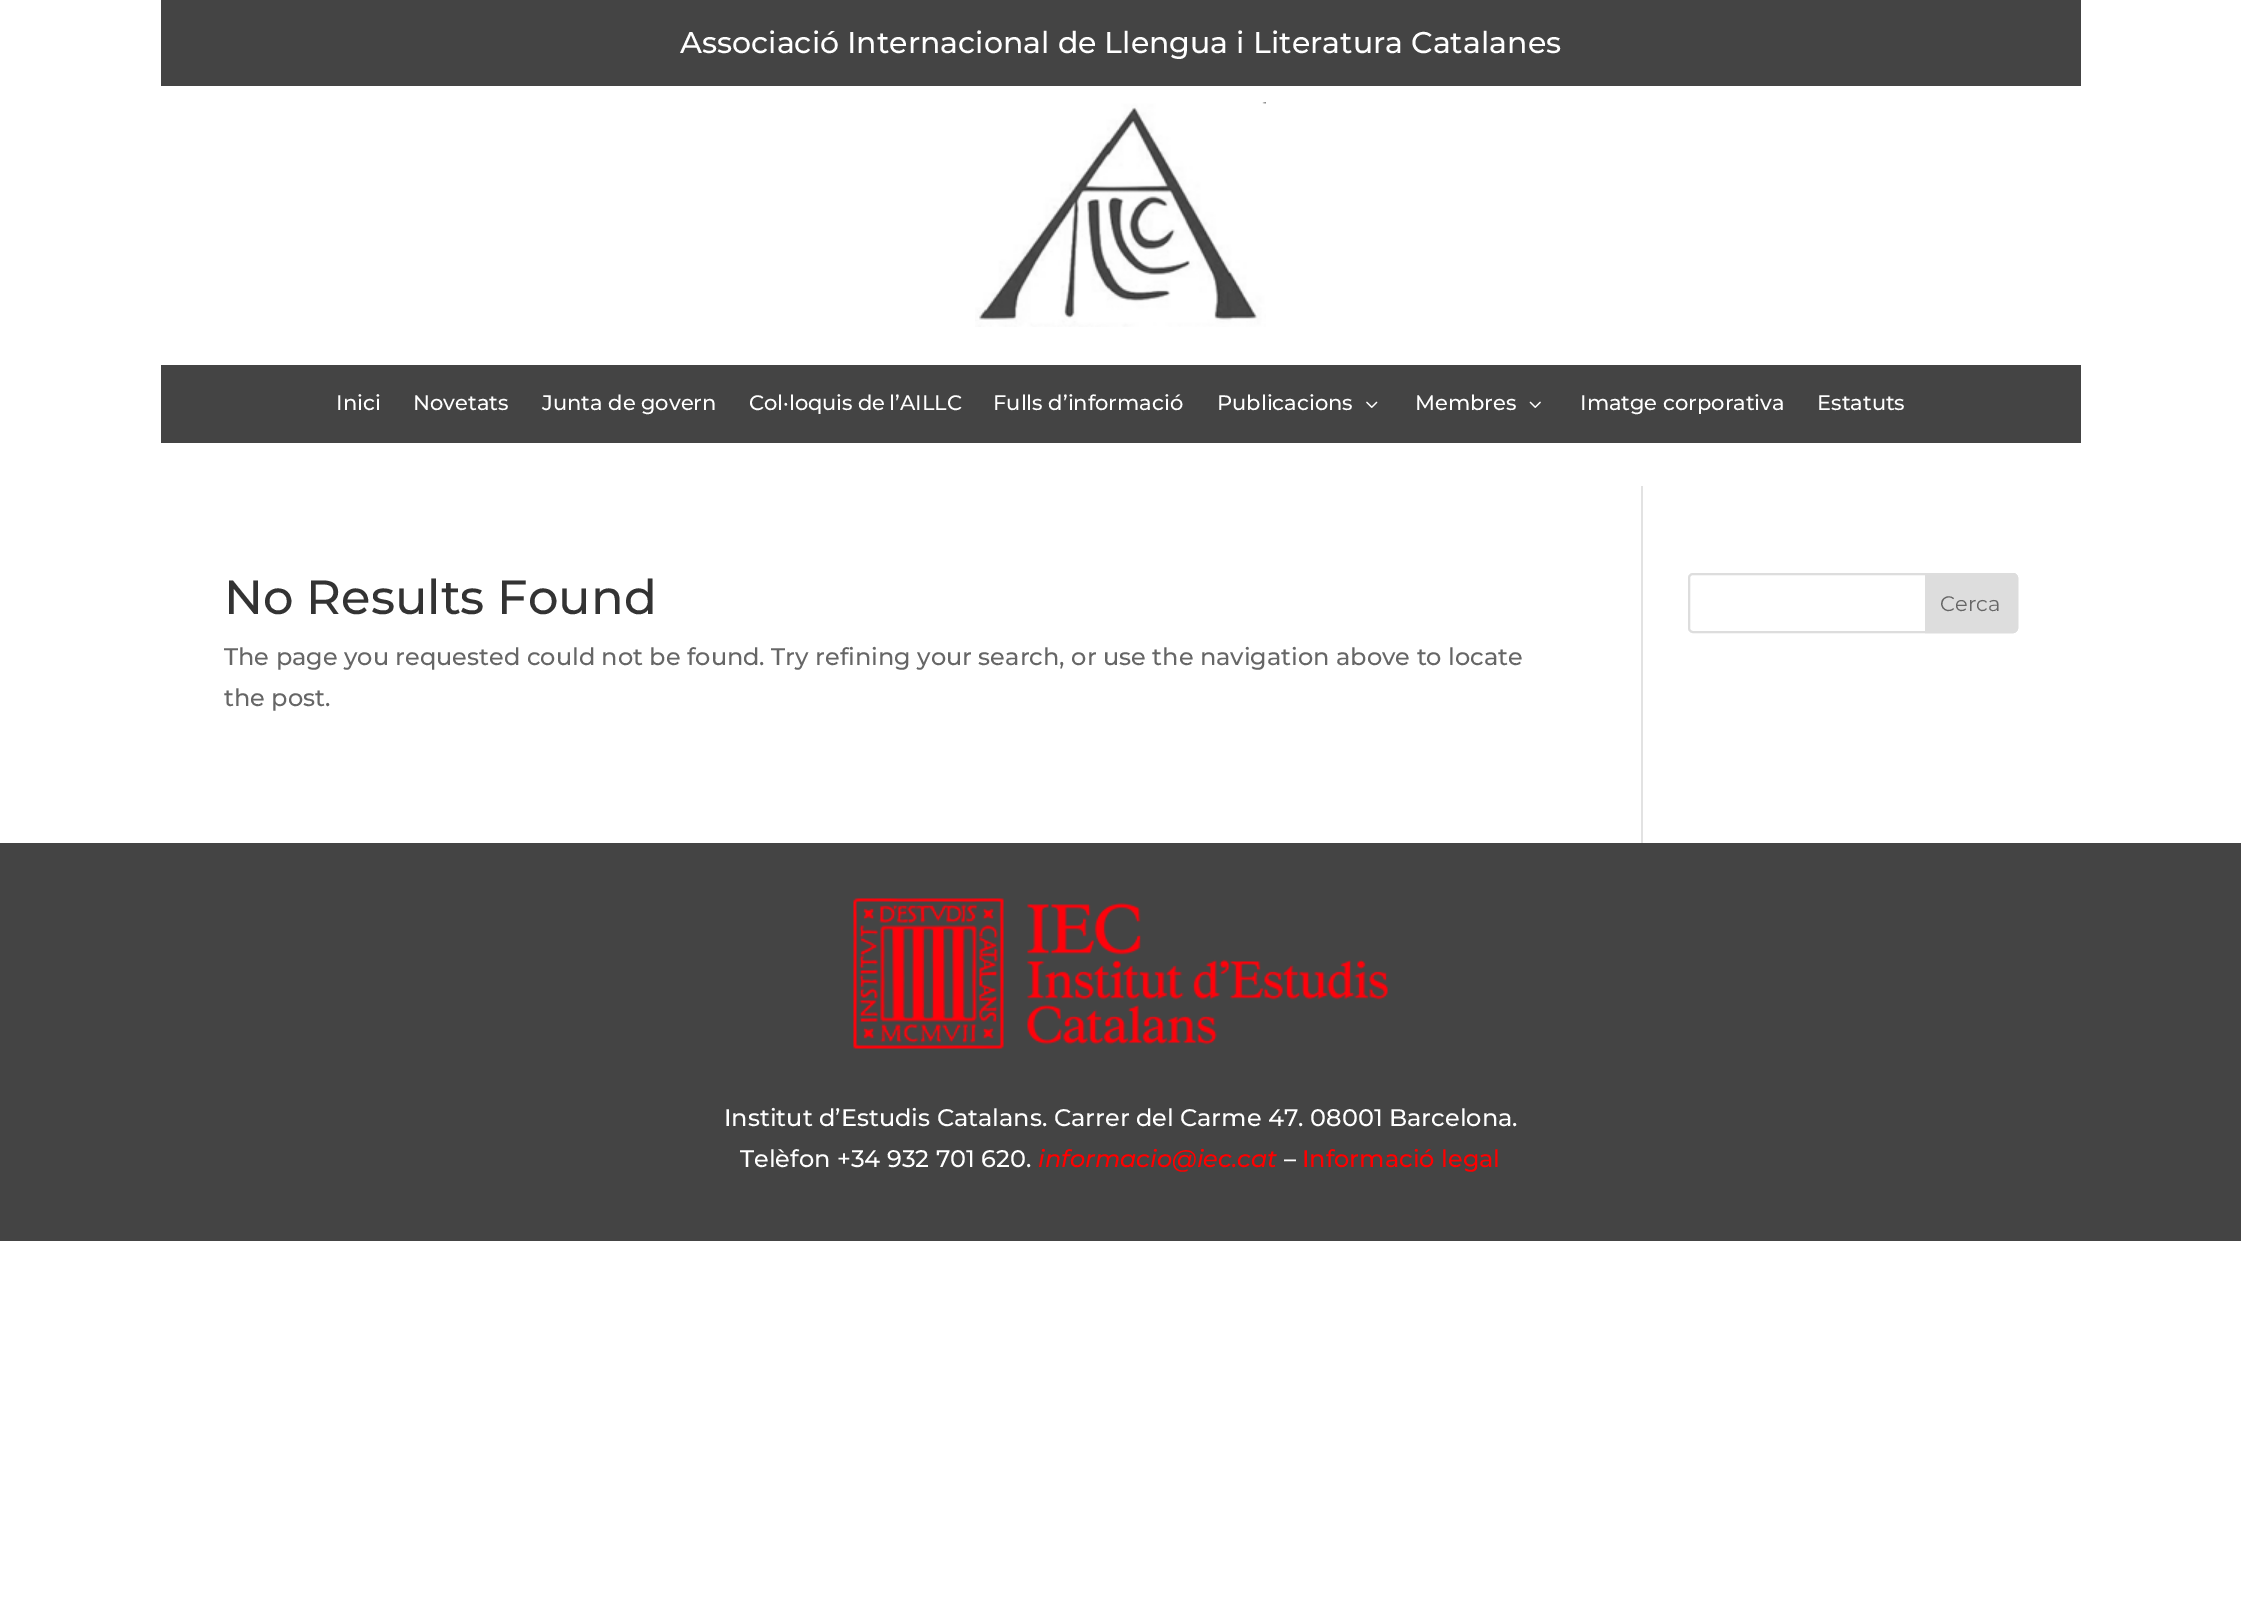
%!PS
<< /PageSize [2241 1597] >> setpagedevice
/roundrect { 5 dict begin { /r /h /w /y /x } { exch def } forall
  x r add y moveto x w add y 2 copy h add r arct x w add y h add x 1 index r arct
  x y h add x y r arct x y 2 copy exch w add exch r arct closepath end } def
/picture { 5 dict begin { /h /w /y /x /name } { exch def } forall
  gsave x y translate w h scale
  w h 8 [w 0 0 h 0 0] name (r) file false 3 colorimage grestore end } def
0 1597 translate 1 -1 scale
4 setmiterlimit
1 setgray
0 0 2241 1597 rectfill
0.267 setgray
161 0 1920 86 rectfill
/Montserrat-Medium [30 0 0 -30 0 0] selectfont
1 setgray
680 53 moveto (Associació Internacional de Llengua i Literatura Catalanes) show
(img1.rgb) 975 102 291 225 picture
0.267 setgray
161 365 1920 78 rectfill
/Montserrat-Medium [21 0 0 -21 0 0] selectfont
1 setgray
336 410 moveto (Inici) show
413 410 moveto (Novetats) show
542 410 moveto (Junta de govern) show
749 410 moveto -1 0 32 (Col·loquis de l’AILLC) widthshow
993 410 moveto (Fulls d’informació) show
1217 410 moveto (Publicacions) show
(img2.rgb) 1366 401 12 7 picture
1415 410 moveto (Membres) show
(img3.rgb) 1529 401 12 7 picture
1580 410 moveto (Imatge corporativa) show
1817 410 moveto (Estatuts) show
0.886 setgray
1641 486 2 357 rectfill
/Montserrat-Medium [48 0 0 -48 0 0] selectfont
0.2 setgray
224 614 moveto (No Results Found) show
/Montserrat-Medium [24 0 0 -24 0 0] selectfont
0.4 setgray
224 665 moveto (The page you requested could not be found. Try refining your search, or use the navigation above to locate) show
224 706 moveto (the post.) show
0.867 setgray
2 setlinewidth
1689 574 328 58 4 roundrect stroke
newpath 1926 574 moveto 2013 574 lineto 2015 574 2017 576 2017 578 curveto 2017 628 lineto 2017 630 2015 632 2013 632 curveto 1926 632 lineto closepath gsave fill grestore
stroke
/Montserrat-Regular [21 0 0 -21 0 0] selectfont
0.4 setgray
1940 611 moveto (Cerca) show
0.267 setgray
0 843 2241 398 rectfill
(img4.rgb) 853 898 535 151 picture
/Montserrat-Medium [24 0 0 -24 0 0] selectfont
1 setgray
724 1126 moveto (Institut d’Estudis Catalans. Carrer del Carme 47. 08001 Barcelona.) show
740 1167 moveto (Telèfon +34 932 701 620.) show
/Montserrat-MediumItalic [24 0 0 -24 0 0] selectfont
1 0 0 setrgbcolor
1038 1167 moveto (informacio@iec.cat) show
/Montserrat-Medium [24 0 0 -24 0 0] selectfont
1 setgray
1284 1167 moveto (–) show
1 0 0 setrgbcolor
1302 1167 moveto (Informació legal) show
showpage
